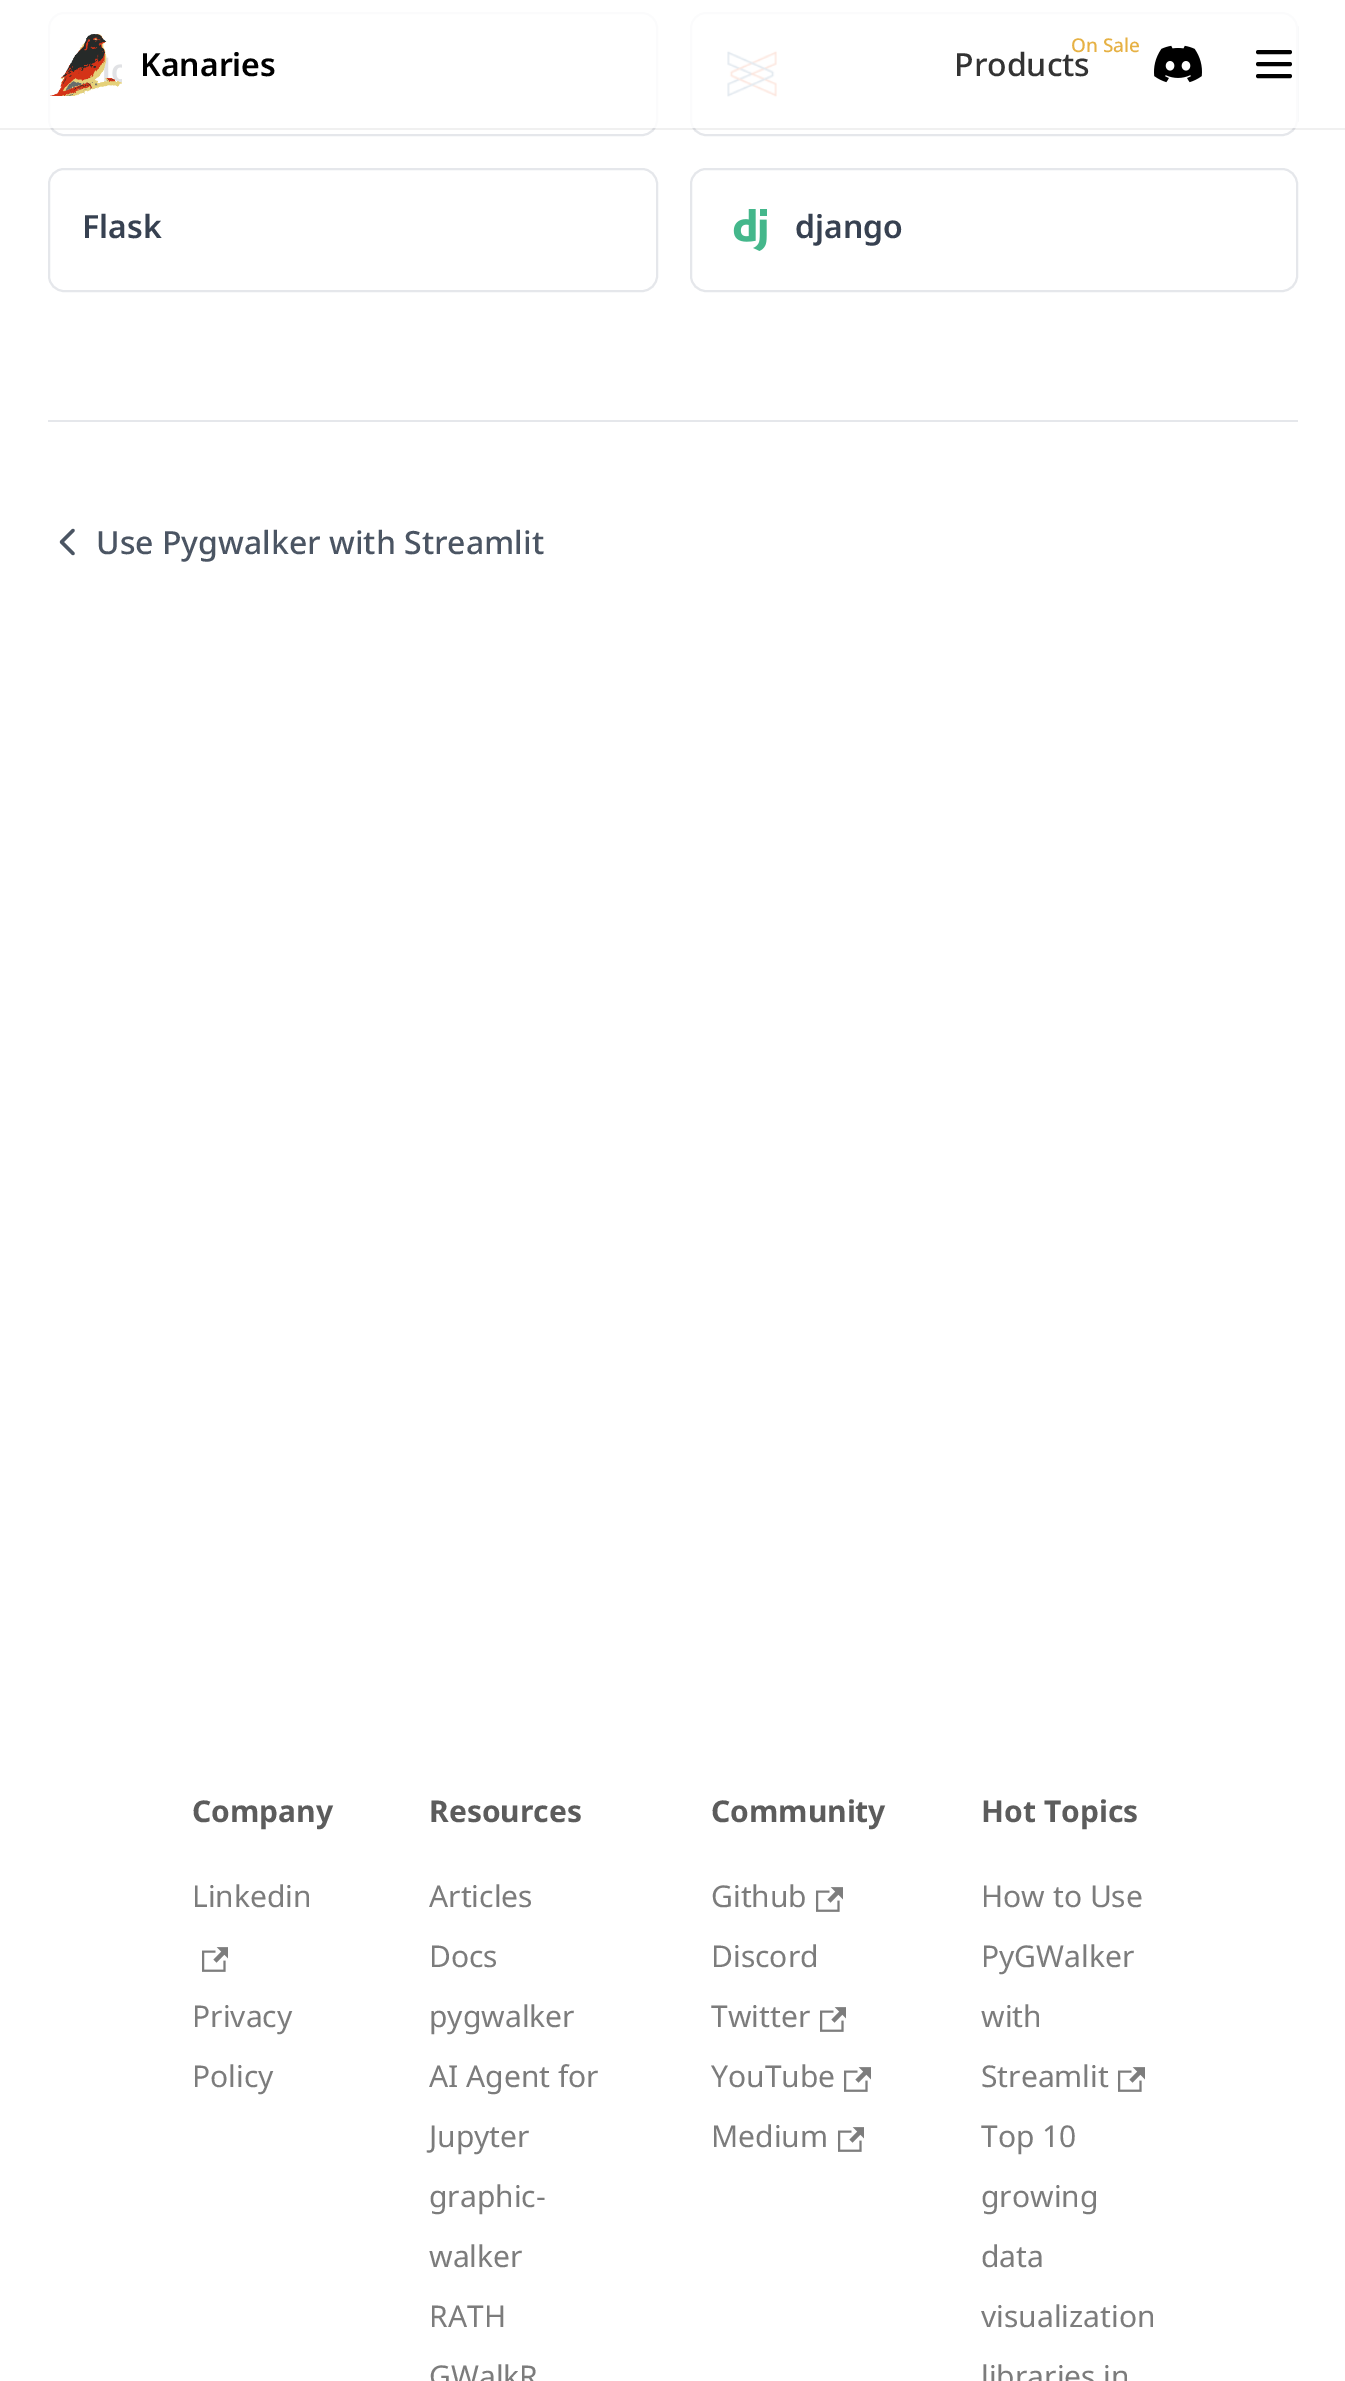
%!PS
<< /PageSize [1345 2381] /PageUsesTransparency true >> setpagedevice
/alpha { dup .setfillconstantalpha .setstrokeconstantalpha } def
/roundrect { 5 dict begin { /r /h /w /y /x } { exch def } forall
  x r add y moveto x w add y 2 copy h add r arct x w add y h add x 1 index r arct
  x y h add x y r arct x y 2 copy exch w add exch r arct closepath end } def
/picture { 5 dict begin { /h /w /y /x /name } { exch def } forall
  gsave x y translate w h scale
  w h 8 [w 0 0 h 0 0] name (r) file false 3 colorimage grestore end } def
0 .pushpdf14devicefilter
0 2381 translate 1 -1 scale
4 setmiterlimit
1 setgray
0 0 1345 2381 rectfill
0.898 0.906 0.922 setrgbcolor
2 setlinewidth
49 13 608 122 15 roundrect stroke
691 13 606 122 15 roundrect stroke
0.06 alpha
0 setgray
0 128 1345 2 rectfill
1 alpha
(img3.rgb) 727 50 51 48 picture
0.85 alpha
1 setgray
48 12 1250 116 rectfill
1 alpha
(img1.rgb) 50 34 72 62 picture
/NotoSans-SemiBold [32 0 0 -32 0 0] selectfont
0 setgray
140 76 moveto (Kanaries) show
/NotoSans-Medium [19 0 0 -19 0 0] selectfont
0.902 0.694 0.267 setrgbcolor
1071 52 moveto (On Sale) show
/NotoSans-Medium [32 0 0 -32 0 0] selectfont
0.2 setgray
954 76 moveto (Products) show
(img2.rgb) 1154 45 48 38 picture
0 setgray
4 setlinewidth
1 setlinecap
1 setlinejoin
newpath 1258 52 moveto 1290 52 lineto 1258 64 moveto 1290 64 lineto 1258 76 moveto 1290 76 lineto stroke
0.898 0.906 0.922 setrgbcolor
2 setlinewidth
0 setlinecap
0 setlinejoin
49 169 608 122 15 roundrect stroke
/NotoSans-SemiBold [32 0 0 -32 0 0] selectfont
0.216 0.255 0.318 setrgbcolor
82 238 moveto (Flask) show
0.898 0.906 0.922 setrgbcolor
691 169 606 122 15 roundrect stroke
(img4.rgb) 733 209 34 42 picture
0.216 0.255 0.318 setrgbcolor
795 238 moveto (django) show
0.898 0.906 0.922 setrgbcolor
48 420 1250 2 rectfill
0.294 0.333 0.388 setrgbcolor
3.3 setlinewidth
1 setlinecap
1 setlinejoin
newpath 73 553.5 moveto 61.5 542 lineto 73 530.5 lineto stroke
/NotoSans-Medium [32 0 0 -32 0 0] selectfont
96 554 moveto (Use Pygwalker with Streamlit) show
/NotoSans-Bold [30 0 0 -30 0 0] selectfont
0.361 setgray
192 1822 moveto (Company) show
/NotoSans-Regular [30 0 0 -30 0 0] selectfont
0.486 setgray
192 1907 moveto (Linkedin) show
(img5.rgb) 202 1947 26 25 picture
192 2027 moveto (Privacy) show
192 2087 moveto (Policy) show
/NotoSans-Bold [30 0 0 -30 0 0] selectfont
0.361 setgray
429 1822 moveto (Resources) show
/NotoSans-Regular [30 0 0 -30 0 0] selectfont
0.486 setgray
429 1907 moveto (Articles) show
429 1967 moveto (Docs) show
429 2027 moveto (pygwalker) show
429 2087 moveto (AI Agent for) show
429 2147 moveto (Jupyter) show
429 2207 moveto (graphic-) show
429 2267 moveto (walker) show
429 2327 moveto (RATH) show
429 2387 moveto (GWalkR) show
/NotoSans-Bold [30 0 0 -30 0 0] selectfont
0.361 setgray
711 1822 moveto (Community) show
/NotoSans-Regular [30 0 0 -30 0 0] selectfont
0.486 setgray
711 1907 moveto (Github) show
(img6.rgb) 816 1887 27 25 picture
711 1967 moveto (Discord) show
711 2027 moveto (Twitter) show
(img5.rgb) 820 2007 26 25 picture
711 2087 moveto (YouTube) show
(img6.rgb) 844 2067 27 25 picture
711 2147 moveto (Medium) show
(img5.rgb) 838 2127 26 25 picture
/NotoSans-Bold [30 0 0 -30 0 0] selectfont
0.361 setgray
981 1822 moveto (Hot Topics) show
/NotoSans-Regular [30 0 0 -30 0 0] selectfont
0.486 setgray
981 1907 moveto (How to Use) show
981 1967 moveto (PyGWalker) show
981 2027 moveto (with) show
981 2087 moveto (Streamlit) show
(img6.rgb) 1118 2067 27 25 picture
981 2147 moveto (Top 10) show
981 2207 moveto (growing) show
981 2267 moveto (data) show
981 2327 moveto (visualization) show
981 2387 moveto (libraries in) show
.poppdf14devicefilter showpage
